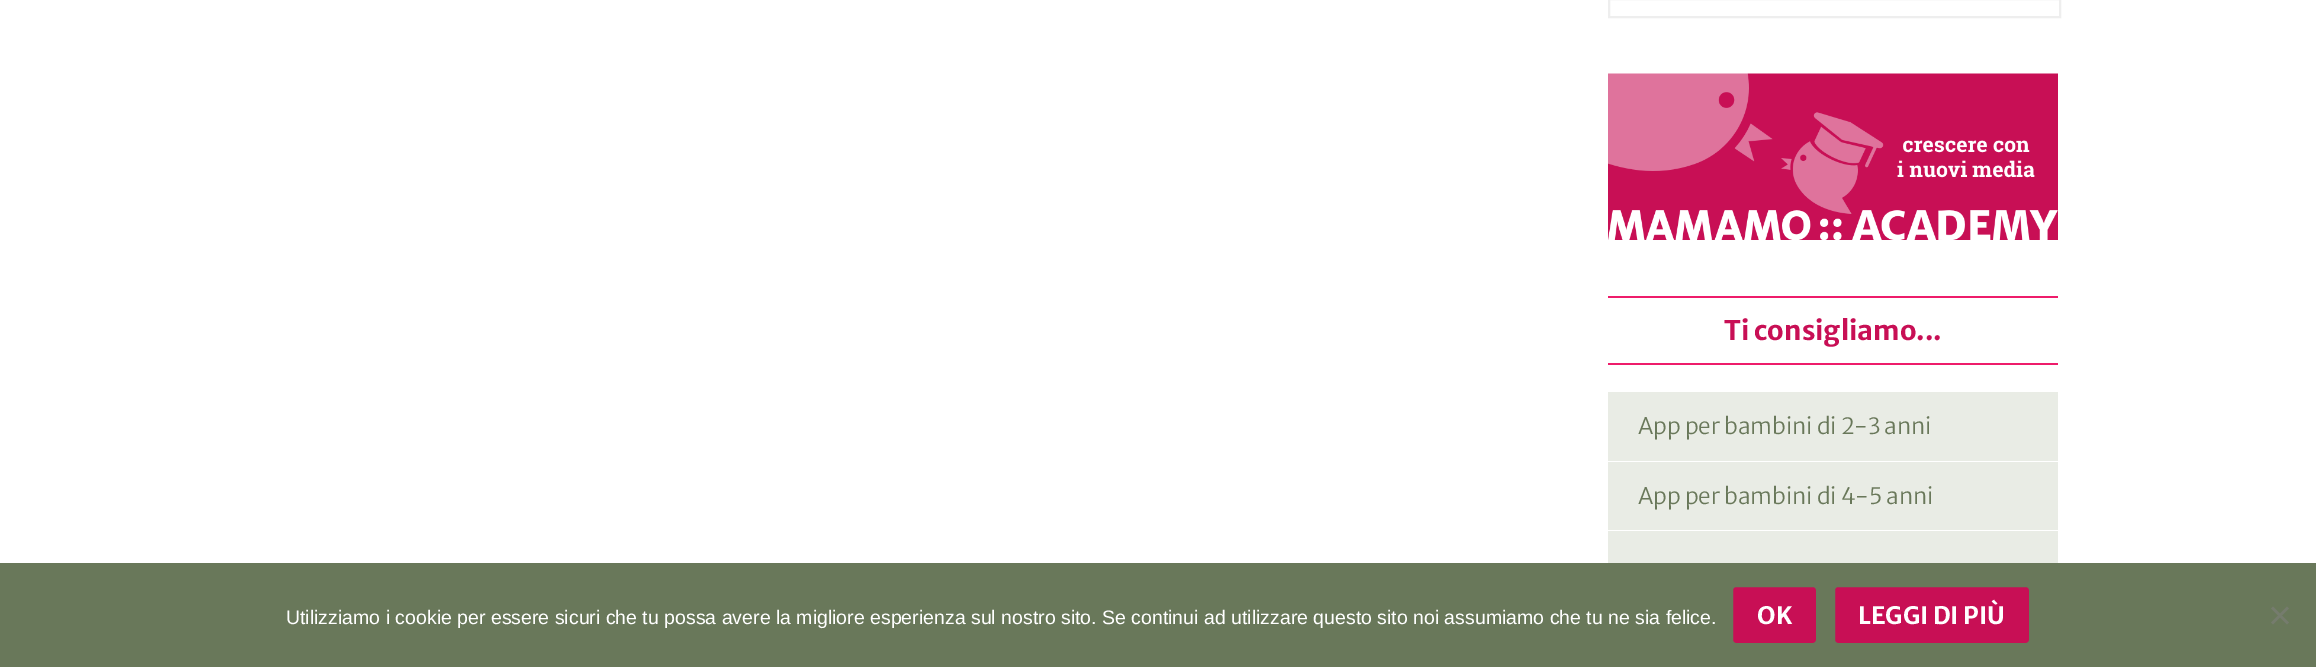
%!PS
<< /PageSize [2316 667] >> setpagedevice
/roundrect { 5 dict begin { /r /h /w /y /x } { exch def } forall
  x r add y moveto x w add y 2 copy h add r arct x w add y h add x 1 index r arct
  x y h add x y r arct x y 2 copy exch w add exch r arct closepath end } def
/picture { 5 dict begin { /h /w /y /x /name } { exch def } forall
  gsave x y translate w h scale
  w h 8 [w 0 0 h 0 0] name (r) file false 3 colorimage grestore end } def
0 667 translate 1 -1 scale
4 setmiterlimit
1 setgray
0 0 2316 667 rectfill
0.933 setgray
2 setlinewidth
1609 -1 451 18 rectstroke
(img1.rgb) 1608 73 450 167 picture
0.933 0.11 0.42 setrgbcolor
1608 296 450 2 rectfill
1608 363 450 2 rectfill
/MerriweatherSans-Bold [27 0 0 -27 0 0] selectfont
0.784 0.059 0.333 setrgbcolor
1724 340 moveto (Ti consigliamo...) show
0.914 0.925 0.898 setrgbcolor
1608 392 450 69 rectfill
/MerriweatherSans-Light [22.5 0 0 -22.5 0 0] selectfont
0.412 0.471 0.353 setrgbcolor
1638 434 moveto (App per bambini di 2-3 anni) show
0.914 0.925 0.898 setrgbcolor
1608 462 450 68 rectfill
0.412 0.471 0.353 setrgbcolor
1638 504 moveto (App per bambini di 4-5 anni) show
0.914 0.925 0.898 setrgbcolor
1608 531 450 32 rectfill
0.412 0.471 0.353 setrgbcolor
0 563 2316 104 rectfill
/LiberationSans-Regular [19.5 0 0 -19.5 0 0] selectfont
1 setgray
286 624 moveto (Utilizziamo i cookie per essere sicuri che tu possa avere la migliore esperienza sul nostro sito. Se continui ad utilizzare questo sito noi assumiamo che tu ne sia felice.) show
0.784 0.059 0.333 setrgbcolor
1732 586 85 58 4 roundrect gsave fill grestore
0.412 0.471 0.353 setrgbcolor
stroke
/MerriweatherSans-Bold [24 0 0 -24 0 0] selectfont
1 setgray
1757 624 moveto (OK) show
0.784 0.059 0.333 setrgbcolor
1834 586 196 58 4 roundrect gsave fill grestore
0.412 0.471 0.353 setrgbcolor
stroke
1 setgray
1858 624 moveto (LEGGI DI PIÙ) show
0.459 0.486 0.427 setrgbcolor
newpath 2287 606.5 moveto 2289 608.5 lineto 2273 624.5 lineto 2271 622.5 lineto closepath fill
newpath 2271 608.5 moveto 2273 606.5 lineto 2289 622.5 lineto 2287 624.5 lineto closepath fill
showpage
